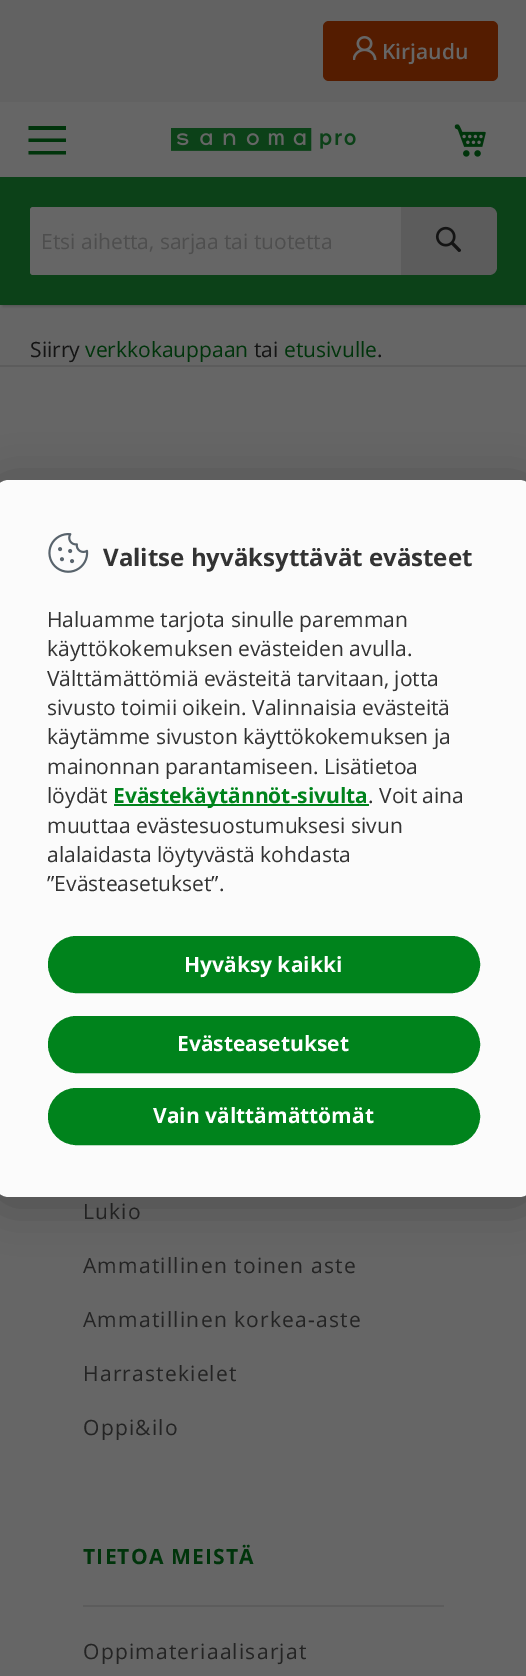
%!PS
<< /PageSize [526 1676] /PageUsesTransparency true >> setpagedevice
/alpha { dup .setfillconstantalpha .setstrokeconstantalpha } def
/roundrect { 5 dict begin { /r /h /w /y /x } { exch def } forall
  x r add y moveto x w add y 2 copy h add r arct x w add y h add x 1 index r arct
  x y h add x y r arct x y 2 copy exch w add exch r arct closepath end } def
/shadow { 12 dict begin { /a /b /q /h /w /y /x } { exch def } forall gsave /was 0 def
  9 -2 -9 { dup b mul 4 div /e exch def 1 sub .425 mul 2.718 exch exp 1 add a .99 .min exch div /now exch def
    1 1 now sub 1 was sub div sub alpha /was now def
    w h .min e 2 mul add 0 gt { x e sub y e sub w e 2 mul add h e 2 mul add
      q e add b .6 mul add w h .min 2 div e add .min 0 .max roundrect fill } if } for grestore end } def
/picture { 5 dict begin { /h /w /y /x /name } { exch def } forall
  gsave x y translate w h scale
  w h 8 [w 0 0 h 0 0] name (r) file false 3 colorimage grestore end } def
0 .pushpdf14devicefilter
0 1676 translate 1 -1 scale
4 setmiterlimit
0.4 setgray
0 0 526 1676 rectfill
0.384 setgray
0 0 526 102 rectfill
0.329 0.11 0 setrgbcolor
323 21 175 60 6 roundrect fill
(img1.rgb) 353 36 24 24 picture
/OpenSans-SemiBold [21 0 0 -21 0 0] selectfont
0.4 setgray
382 59 moveto (Kirjaudu) show
0 0.204 0.043 setrgbcolor
newpath 28.5 126 moveto 28.5 130 lineto 66 130 lineto 66 126 lineto closepath 28.5 142 moveto 66 142 lineto 66 138.5 lineto 28.5 138.5 lineto closepath 28.5 154.5 moveto 66 154.5 lineto 66 151 lineto 28.5 151 lineto closepath fill
(img2.rgb) 171 128 185 23 picture
(img3.rgb) 454 124 32 33 picture
0 setgray
3 185 521 121 0 1.5 0.2 shadow
0.047 0.255 0.094 setrgbcolor
0 177 526 128 rectfill
0.4 setgray
newpath 33 207 moveto 401 207 lineto 401 275 lineto 33 275 lineto 31.5 275 30 273.5 30 272 curveto 30 210 lineto 30 208.5 31.5 207 33 207 curveto closepath fill
/OpenSans-Regular [21 0 0 -21 0 0] selectfont
0.306 setgray
41 249 moveto (Etsi aihetta, sarjaa tai tuotetta) show
0.361 setgray
newpath 401 207 moveto 489 207 lineto 493.5 207 497 210.5 497 215 curveto 497 267 lineto 497 271.5 493.5 275 489 275 curveto 401 275 lineto closepath fill
(img4.rgb) 435 226 26 26 picture
0.078 setgray
30 357 moveto (Siirry) show
0 0.204 0.043 setrgbcolor
85 357 moveto (verkkokauppaan) show
0.078 setgray
254 357 moveto (tai) show
0 0.204 0.043 setrgbcolor
284 357 moveto (etusivulle) show
0.078 setgray
377 357 moveto (.) show
0.361 setgray
0 365 526 2 rectfill
0.141 setgray
83 1219 moveto 1.2 0 (Lukio) ashow
83 1273 moveto 1.2 0 (Ammatillinen toinen aste) ashow
83 1327 moveto 1.2 0 (Ammatillinen korkea-aste) ashow
83 1381 moveto 1.2 0 (Harrastekielet) ashow
83 1435 moveto 1.2 0 (Oppi&ilo) ashow
0.361 setgray
83 1605 361 2 rectfill
/OpenSans-Bold [21 0 0 -21 0 0] selectfont
0 0.204 0.043 setrgbcolor
83 1564 moveto 1.2 0 (TIETOA MEISTÄ) ashow
/OpenSans-Regular [21 0 0 -21 0 0] selectfont
0.141 setgray
83 1659 moveto 1.2 0 (Oppimateriaalisarjat) ashow
0 setgray
-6 486 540 717 15 24 0.25 shadow
0.984 setgray
-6 480 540 717 15 roundrect fill
(img5.rgb) 48 533 41 40 picture
/OpenSans-Bold [24 0 0 -24 0 0] selectfont
0.2 setgray
103 566 moveto (Valitse hyväksyttävät evästeet) show
/OpenSans-Regular [21 0 0 -21 0 0] selectfont
47 627 moveto (Haluamme tarjota sinulle paremman) show
47 656 moveto (käyttökokemuksen evästeiden avulla.) show
47 686 moveto (Välttämättömiä evästeitä tarvitaan, jotta) show
47 715 moveto (sivusto toimii oikein. Valinnaisia evästeitä) show
47 744 moveto (käytämme sivuston käyttökokemuksen ja) show
47 774 moveto (mainonnan parantamiseen. Lisätietoa) show
47 803 moveto (löydät) show
0 0.514 0.11 setrgbcolor
114 804 255 2 rectfill
/OpenSans-Bold [21 0 0 -21 0 0] selectfont
113 803 moveto (Evästekäytännöt-sivulta) show
/OpenSans-Regular [21 0 0 -21 0 0] selectfont
0.2 setgray
368 803 moveto (. Voit aina) show
47 833 moveto (muuttaa evästesuostumuksesi sivun) show
47 862 moveto (alalaidasta löytyvästä kohdasta) show
47 891 moveto (”Evästeasetukset”.) show
0 0.514 0.11 setrgbcolor
49 937 430 55 27.5 roundrect gsave fill grestore
2 setlinewidth
stroke
/OpenSans-Bold [21 0 0 -21 0 0] selectfont
1 setgray
184 972 moveto (Hyväksy kaikki) show
0 0.514 0.11 setrgbcolor
49 1017 430 55 27.5 roundrect gsave fill grestore
stroke
1 setgray
177 1051 moveto (Evästeasetukset) show
0 0.514 0.11 setrgbcolor
49 1089 430 55 27.5 roundrect gsave fill grestore
stroke
1 setgray
153 1123 moveto (Vain välttämättömät) show
.poppdf14devicefilter showpage
